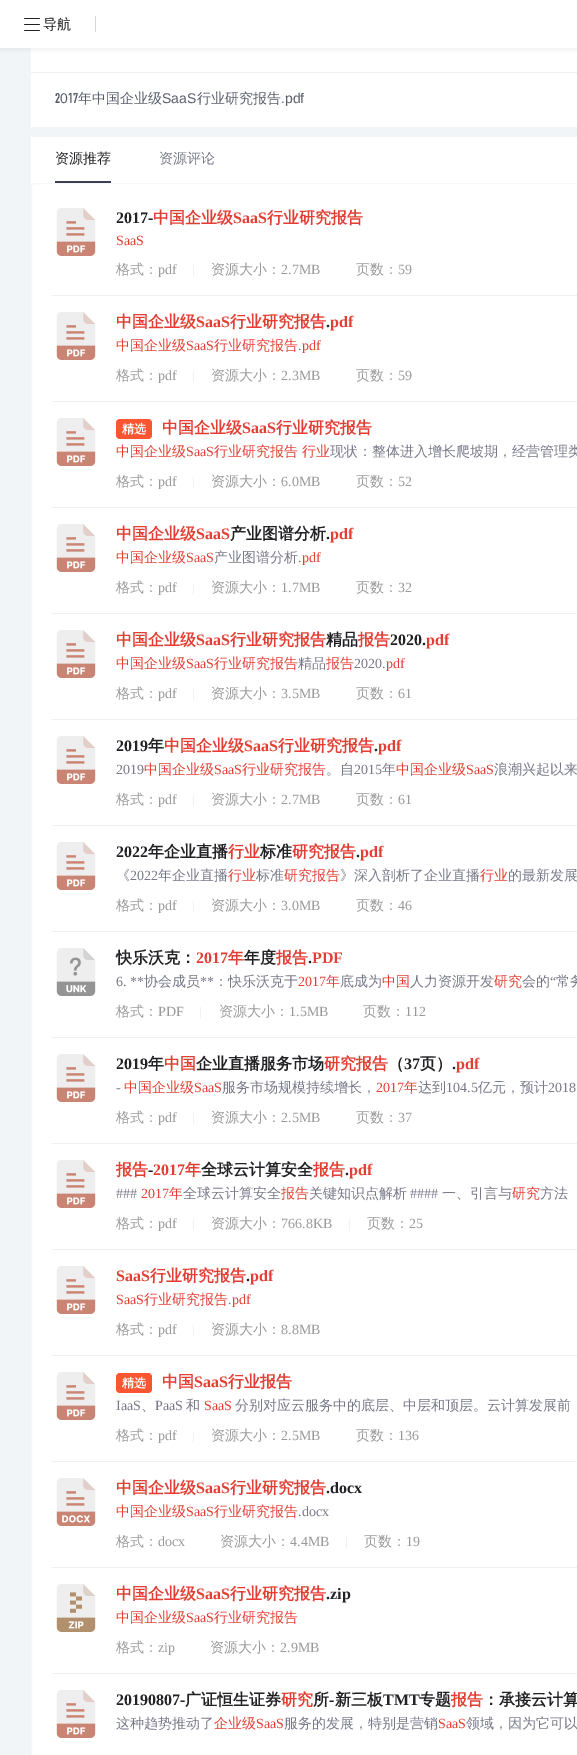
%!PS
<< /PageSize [577 1755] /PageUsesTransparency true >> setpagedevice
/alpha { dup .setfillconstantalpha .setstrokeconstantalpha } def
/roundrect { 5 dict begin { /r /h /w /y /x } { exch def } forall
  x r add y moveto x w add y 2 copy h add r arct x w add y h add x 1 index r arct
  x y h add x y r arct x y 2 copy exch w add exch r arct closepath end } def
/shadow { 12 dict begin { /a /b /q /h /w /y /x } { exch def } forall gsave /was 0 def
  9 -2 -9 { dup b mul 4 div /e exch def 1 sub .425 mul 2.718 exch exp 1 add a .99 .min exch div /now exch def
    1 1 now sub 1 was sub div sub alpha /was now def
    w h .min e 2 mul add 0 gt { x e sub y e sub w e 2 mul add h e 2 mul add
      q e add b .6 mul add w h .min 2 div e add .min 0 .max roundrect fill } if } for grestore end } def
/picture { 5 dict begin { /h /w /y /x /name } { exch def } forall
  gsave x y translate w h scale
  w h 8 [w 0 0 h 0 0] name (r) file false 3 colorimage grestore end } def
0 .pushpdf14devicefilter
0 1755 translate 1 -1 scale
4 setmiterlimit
0.949 0.961 0.969 setrgbcolor
0 0 577 1755 rectfill
1 setgray
31 48 546 79 rectfill
0 setgray
0 2 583 48 0 2 0.05 shadow
1 setgray
0 0 577 48 rectfill
(img1.rgb) 24 18 16 13 picture
/WenQuanYiZenHei-Medium [14 0 0 -14 0 0] selectfont
0.102 setgray
43 29 moveto (导航) show
0.847 setgray
95 16 1 16 0.5 roundrect fill
0.941 0.941 0.961 setrgbcolor
31 72 546 1 rectfill
/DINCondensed-Bold [14 0 0 -14 0 0] selectfont
0.345 0.365 0.424 setrgbcolor
55 103 moveto (2) show
/LiberationSans-Regular [14 0 0 -14 0 0] selectfont
60 103 moveto (0) show
/DINCondensed-Bold [14 0 0 -14 0 0] selectfont
68 103 moveto (17) show
/WenQuanYiZenHei-Medium [14 0 0 -14 0 0] selectfont
78 103 moveto (年中国企业级) show
/LiberationSans-Regular [14 0 0 -14 0 0] selectfont
162 103 moveto (SaaS) show
/WenQuanYiZenHei-Medium [14 0 0 -14 0 0] selectfont
197 103 moveto (行业研究报告) show
/LiberationSans-Regular [14 0 0 -14 0 0] selectfont
281 103 moveto (.pdf) show
1 setgray
31 137 546 46 rectfill
/WenQuanYiZenHei-Medium [14 0 0 -14 0 0] selectfont
0.133 0.133 0.149 setrgbcolor
55 163 moveto (资源推荐) show
0.467 0.471 0.533 setrgbcolor
159 163 moveto (资源评论) show
0.227 0.255 0.337 setrgbcolor
55 181 56 2 rectfill
1 setgray
31.5 183.5 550 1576 3.5 roundrect gsave fill grestore
0.969 0.969 0.988 setrgbcolor
stroke
(img2.rgb) 56 208 40 48 picture
/LiberationSerif-Bold [16 0 0 -16 0 0] selectfont
0.133 0.133 0.149 setrgbcolor
116 223 moveto (2017-) show
/WenQuanYiZenHei-Bold [16 0 0 -16 0 0] selectfont
0.89 0.243 0.2 setrgbcolor
153 223 moveto (中国企业级) show
/LiberationSerif-Bold [16 0 0 -16 0 0] selectfont
233 223 moveto (SaaS) show
/WenQuanYiZenHei-Bold [16 0 0 -16 0 0] selectfont
267 223 moveto (行业研究报告) show
/LiberationSerif-Regular [14 0 0 -14 0 0] selectfont
116 245 moveto (SaaS) show
/WenQuanYiZenHei-Medium [14 0 0 -14 0 0] selectfont
0.6 setgray
116 274 moveto (格式：) show
/LiberationSerif-Regular [14 0 0 -14 0 0] selectfont
158 274 moveto (pdf) show
/LiberationSerif-Regular [13 0 0 -13 0 0] selectfont
0.898 setgray
192 274 moveto 1 0 (|) ashow
/WenQuanYiZenHei-Medium [14 0 0 -14 0 0] selectfont
0.6 setgray
211 274 moveto (资源大小：) show
/LiberationSerif-Regular [14 0 0 -14 0 0] selectfont
281 274 moveto (2.7MB) show
/WenQuanYiZenHei-Medium [14 0 0 -14 0 0] selectfont
356 274 moveto (页数：) show
/LiberationSerif-Regular [14 0 0 -14 0 0] selectfont
398 274 moveto (59) show
0.941 0.941 0.949 setrgbcolor
52 295 525 1 rectfill
(img2.rgb) 56 312 40 48 picture
/WenQuanYiZenHei-Bold [16 0 0 -16 0 0] selectfont
0.89 0.243 0.2 setrgbcolor
116 327 moveto (中国企业级) show
/LiberationSerif-Bold [16 0 0 -16 0 0] selectfont
196 327 moveto (SaaS) show
/WenQuanYiZenHei-Bold [16 0 0 -16 0 0] selectfont
230 327 moveto (行业研究报告) show
/LiberationSerif-Bold [16 0 0 -16 0 0] selectfont
0.133 0.133 0.149 setrgbcolor
326 327 moveto (.) show
0.89 0.243 0.2 setrgbcolor
330 327 moveto (pdf) show
/WenQuanYiZenHei-Medium [14 0 0 -14 0 0] selectfont
116 350 moveto (中国企业级) show
/LiberationSerif-Regular [14 0 0 -14 0 0] selectfont
186 350 moveto (SaaS) show
/WenQuanYiZenHei-Medium [14 0 0 -14 0 0] selectfont
214 350 moveto (行业研究报告) show
/LiberationSerif-Regular [14 0 0 -14 0 0] selectfont
0.467 0.471 0.533 setrgbcolor
298 350 moveto (.) show
0.89 0.243 0.2 setrgbcolor
302 350 moveto (pdf) show
/WenQuanYiZenHei-Medium [14 0 0 -14 0 0] selectfont
0.6 setgray
116 380 moveto (格式：) show
/LiberationSerif-Regular [14 0 0 -14 0 0] selectfont
158 380 moveto (pdf) show
/LiberationSerif-Regular [13 0 0 -13 0 0] selectfont
0.898 setgray
192 380 moveto 1 0 (|) ashow
/WenQuanYiZenHei-Medium [14 0 0 -14 0 0] selectfont
0.6 setgray
211 380 moveto (资源大小：) show
/LiberationSerif-Regular [14 0 0 -14 0 0] selectfont
281 380 moveto (2.3MB) show
/WenQuanYiZenHei-Medium [14 0 0 -14 0 0] selectfont
356 380 moveto (页数：) show
/LiberationSerif-Regular [14 0 0 -14 0 0] selectfont
398 380 moveto (59) show
0.941 0.941 0.949 setrgbcolor
52 401 525 1 rectfill
(img2.rgb) 56 418 40 48 picture
0.988 0.333 0.192 setrgbcolor
116 419 36 20 4 roundrect fill
/WenQuanYiZenHei-Bold [12 0 0 -12 0 0] selectfont
1 setgray
122 433 moveto (精选) show
/WenQuanYiZenHei-Bold [16 0 0 -16 0 0] selectfont
0.89 0.243 0.2 setrgbcolor
162 433 moveto (中国企业级) show
/LiberationSerif-Bold [16 0 0 -16 0 0] selectfont
242 433 moveto (SaaS) show
/WenQuanYiZenHei-Bold [16 0 0 -16 0 0] selectfont
276 433 moveto (行业研究报告) show
/WenQuanYiZenHei-Medium [14 0 0 -14 0 0] selectfont
116 456 moveto (中国企业级) show
/LiberationSerif-Regular [14 0 0 -14 0 0] selectfont
186 456 moveto (SaaS) show
/WenQuanYiZenHei-Medium [14 0 0 -14 0 0] selectfont
214 456 moveto (行业研究报告) show
302 456 moveto (行业) show
0.467 0.471 0.533 setrgbcolor
330 456 moveto (现状：整体进入增长爬坡期，经营管理类) show
0.6 setgray
116 486 moveto (格式：) show
/LiberationSerif-Regular [14 0 0 -14 0 0] selectfont
158 486 moveto (pdf) show
/LiberationSerif-Regular [13 0 0 -13 0 0] selectfont
0.898 setgray
192 486 moveto 1 0 (|) ashow
/WenQuanYiZenHei-Medium [14 0 0 -14 0 0] selectfont
0.6 setgray
211 486 moveto (资源大小：) show
/LiberationSerif-Regular [14 0 0 -14 0 0] selectfont
281 486 moveto (6.0MB) show
/WenQuanYiZenHei-Medium [14 0 0 -14 0 0] selectfont
356 486 moveto (页数：) show
/LiberationSerif-Regular [14 0 0 -14 0 0] selectfont
398 486 moveto (52) show
0.941 0.941 0.949 setrgbcolor
52 507 525 1 rectfill
(img2.rgb) 56 524 40 48 picture
/WenQuanYiZenHei-Bold [16 0 0 -16 0 0] selectfont
0.89 0.243 0.2 setrgbcolor
116 539 moveto (中国企业级) show
/LiberationSerif-Bold [16 0 0 -16 0 0] selectfont
196 539 moveto (SaaS) show
/WenQuanYiZenHei-Bold [16 0 0 -16 0 0] selectfont
0.133 0.133 0.149 setrgbcolor
230 539 moveto (产业图谱分析) show
/LiberationSerif-Bold [16 0 0 -16 0 0] selectfont
326 539 moveto (.) show
0.89 0.243 0.2 setrgbcolor
330 539 moveto (pdf) show
/WenQuanYiZenHei-Medium [14 0 0 -14 0 0] selectfont
116 562 moveto (中国企业级) show
/LiberationSerif-Regular [14 0 0 -14 0 0] selectfont
186 562 moveto (SaaS) show
/WenQuanYiZenHei-Medium [14 0 0 -14 0 0] selectfont
0.467 0.471 0.533 setrgbcolor
214 562 moveto (产业图谱分析) show
/LiberationSerif-Regular [14 0 0 -14 0 0] selectfont
298 562 moveto (.) show
0.89 0.243 0.2 setrgbcolor
302 562 moveto (pdf) show
/WenQuanYiZenHei-Medium [14 0 0 -14 0 0] selectfont
0.6 setgray
116 592 moveto (格式：) show
/LiberationSerif-Regular [14 0 0 -14 0 0] selectfont
158 592 moveto (pdf) show
/LiberationSerif-Regular [13 0 0 -13 0 0] selectfont
0.898 setgray
192 592 moveto 1 0 (|) ashow
/WenQuanYiZenHei-Medium [14 0 0 -14 0 0] selectfont
0.6 setgray
211 592 moveto (资源大小：) show
/LiberationSerif-Regular [14 0 0 -14 0 0] selectfont
281 592 moveto (1.7MB) show
/WenQuanYiZenHei-Medium [14 0 0 -14 0 0] selectfont
356 592 moveto (页数：) show
/LiberationSerif-Regular [14 0 0 -14 0 0] selectfont
398 592 moveto (32) show
0.941 0.941 0.949 setrgbcolor
52 613 525 1 rectfill
(img2.rgb) 56 630 40 48 picture
/WenQuanYiZenHei-Bold [16 0 0 -16 0 0] selectfont
0.89 0.243 0.2 setrgbcolor
116 645 moveto (中国企业级) show
/LiberationSerif-Bold [16 0 0 -16 0 0] selectfont
196 645 moveto (SaaS) show
/WenQuanYiZenHei-Bold [16 0 0 -16 0 0] selectfont
230 645 moveto (行业研究报告) show
0.133 0.133 0.149 setrgbcolor
326 645 moveto (精品) show
0.89 0.243 0.2 setrgbcolor
358 645 moveto (报告) show
/LiberationSerif-Bold [16 0 0 -16 0 0] selectfont
0.133 0.133 0.149 setrgbcolor
390 645 moveto (2020.) show
0.89 0.243 0.2 setrgbcolor
426 645 moveto (pdf) show
/WenQuanYiZenHei-Medium [14 0 0 -14 0 0] selectfont
116 668 moveto (中国企业级) show
/LiberationSerif-Regular [14 0 0 -14 0 0] selectfont
186 668 moveto (SaaS) show
/WenQuanYiZenHei-Medium [14 0 0 -14 0 0] selectfont
214 668 moveto (行业研究报告) show
0.467 0.471 0.533 setrgbcolor
298 668 moveto (精品) show
0.89 0.243 0.2 setrgbcolor
326 668 moveto (报告) show
/LiberationSerif-Regular [14 0 0 -14 0 0] selectfont
0.467 0.471 0.533 setrgbcolor
354 668 moveto (2020.) show
0.89 0.243 0.2 setrgbcolor
386 668 moveto (pdf) show
/WenQuanYiZenHei-Medium [14 0 0 -14 0 0] selectfont
0.6 setgray
116 698 moveto (格式：) show
/LiberationSerif-Regular [14 0 0 -14 0 0] selectfont
158 698 moveto (pdf) show
/LiberationSerif-Regular [13 0 0 -13 0 0] selectfont
0.898 setgray
192 698 moveto 1 0 (|) ashow
/WenQuanYiZenHei-Medium [14 0 0 -14 0 0] selectfont
0.6 setgray
211 698 moveto (资源大小：) show
/LiberationSerif-Regular [14 0 0 -14 0 0] selectfont
281 698 moveto (3.5MB) show
/WenQuanYiZenHei-Medium [14 0 0 -14 0 0] selectfont
356 698 moveto (页数：) show
/LiberationSerif-Regular [14 0 0 -14 0 0] selectfont
398 698 moveto (61) show
0.941 0.941 0.949 setrgbcolor
52 719 525 1 rectfill
(img2.rgb) 56 736 40 48 picture
/LiberationSerif-Bold [16 0 0 -16 0 0] selectfont
0.133 0.133 0.149 setrgbcolor
116 751 moveto (2019) show
/WenQuanYiZenHei-Bold [16 0 0 -16 0 0] selectfont
148 751 moveto (年) show
0.89 0.243 0.2 setrgbcolor
164 751 moveto (中国企业级) show
/LiberationSerif-Bold [16 0 0 -16 0 0] selectfont
244 751 moveto (SaaS) show
/WenQuanYiZenHei-Bold [16 0 0 -16 0 0] selectfont
278 751 moveto (行业研究报告) show
/LiberationSerif-Bold [16 0 0 -16 0 0] selectfont
0.133 0.133 0.149 setrgbcolor
374 751 moveto (.) show
0.89 0.243 0.2 setrgbcolor
378 751 moveto (pdf) show
/LiberationSerif-Regular [14 0 0 -14 0 0] selectfont
0.467 0.471 0.533 setrgbcolor
116 774 moveto (2019) show
/WenQuanYiZenHei-Medium [14 0 0 -14 0 0] selectfont
0.89 0.243 0.2 setrgbcolor
144 774 moveto (中国企业级) show
/LiberationSerif-Regular [14 0 0 -14 0 0] selectfont
214 774 moveto (SaaS) show
/WenQuanYiZenHei-Medium [14 0 0 -14 0 0] selectfont
242 774 moveto (行业研究报告) show
0.467 0.471 0.533 setrgbcolor
326 774 moveto (。自) show
/LiberationSerif-Regular [14 0 0 -14 0 0] selectfont
354 774 moveto (2015) show
/WenQuanYiZenHei-Medium [14 0 0 -14 0 0] selectfont
382 774 moveto (年) show
0.89 0.243 0.2 setrgbcolor
396 774 moveto (中国企业级) show
/LiberationSerif-Regular [14 0 0 -14 0 0] selectfont
466 774 moveto (SaaS) show
/WenQuanYiZenHei-Medium [14 0 0 -14 0 0] selectfont
0.467 0.471 0.533 setrgbcolor
494 774 moveto (浪潮兴起以来) show
0.6 setgray
116 804 moveto (格式：) show
/LiberationSerif-Regular [14 0 0 -14 0 0] selectfont
158 804 moveto (pdf) show
/LiberationSerif-Regular [13 0 0 -13 0 0] selectfont
0.898 setgray
192 804 moveto 1 0 (|) ashow
/WenQuanYiZenHei-Medium [14 0 0 -14 0 0] selectfont
0.6 setgray
211 804 moveto (资源大小：) show
/LiberationSerif-Regular [14 0 0 -14 0 0] selectfont
281 804 moveto (2.7MB) show
/WenQuanYiZenHei-Medium [14 0 0 -14 0 0] selectfont
356 804 moveto (页数：) show
/LiberationSerif-Regular [14 0 0 -14 0 0] selectfont
398 804 moveto (61) show
0.941 0.941 0.949 setrgbcolor
52 825 525 1 rectfill
(img2.rgb) 56 842 40 48 picture
/LiberationSerif-Bold [16 0 0 -16 0 0] selectfont
0.133 0.133 0.149 setrgbcolor
116 857 moveto (2022) show
/WenQuanYiZenHei-Bold [16 0 0 -16 0 0] selectfont
148 857 moveto (年企业直播) show
0.89 0.243 0.2 setrgbcolor
228 857 moveto (行业) show
0.133 0.133 0.149 setrgbcolor
260 857 moveto (标准) show
0.89 0.243 0.2 setrgbcolor
292 857 moveto (研究报告) show
/LiberationSerif-Bold [16 0 0 -16 0 0] selectfont
0.133 0.133 0.149 setrgbcolor
356 857 moveto (.) show
0.89 0.243 0.2 setrgbcolor
360 857 moveto (pdf) show
/WenQuanYiZenHei-Medium [14 0 0 -14 0 0] selectfont
0.467 0.471 0.533 setrgbcolor
116 880 moveto (《) show
/LiberationSerif-Regular [14 0 0 -14 0 0] selectfont
130 880 moveto (2022) show
/WenQuanYiZenHei-Medium [14 0 0 -14 0 0] selectfont
158 880 moveto (年企业直播) show
0.89 0.243 0.2 setrgbcolor
228 880 moveto (行业) show
0.467 0.471 0.533 setrgbcolor
256 880 moveto (标准) show
0.89 0.243 0.2 setrgbcolor
284 880 moveto (研究报告) show
0.467 0.471 0.533 setrgbcolor
340 880 moveto (》深入剖析了企业直播) show
0.89 0.243 0.2 setrgbcolor
480 880 moveto (行业) show
0.467 0.471 0.533 setrgbcolor
508 880 moveto (的最新发展) show
0.6 setgray
116 910 moveto (格式：) show
/LiberationSerif-Regular [14 0 0 -14 0 0] selectfont
158 910 moveto (pdf) show
/LiberationSerif-Regular [13 0 0 -13 0 0] selectfont
0.898 setgray
192 910 moveto 1 0 (|) ashow
/WenQuanYiZenHei-Medium [14 0 0 -14 0 0] selectfont
0.6 setgray
211 910 moveto (资源大小：) show
/LiberationSerif-Regular [14 0 0 -14 0 0] selectfont
281 910 moveto (3.0MB) show
/WenQuanYiZenHei-Medium [14 0 0 -14 0 0] selectfont
356 910 moveto (页数：) show
/LiberationSerif-Regular [14 0 0 -14 0 0] selectfont
398 910 moveto (46) show
0.941 0.941 0.949 setrgbcolor
52 931 525 1 rectfill
(img3.rgb) 56 948 40 48 picture
/WenQuanYiZenHei-Bold [16 0 0 -16 0 0] selectfont
0.133 0.133 0.149 setrgbcolor
116 963 moveto (快乐沃克：) show
/LiberationSerif-Bold [16 0 0 -16 0 0] selectfont
0.89 0.243 0.2 setrgbcolor
196 963 moveto (2017) show
/WenQuanYiZenHei-Bold [16 0 0 -16 0 0] selectfont
228 963 moveto (年) show
0.133 0.133 0.149 setrgbcolor
244 963 moveto (年度) show
0.89 0.243 0.2 setrgbcolor
276 963 moveto (报告) show
/LiberationSerif-Bold [16 0 0 -16 0 0] selectfont
0.133 0.133 0.149 setrgbcolor
308 963 moveto (.) show
0.89 0.243 0.2 setrgbcolor
312 963 moveto (PDF) show
/LiberationSerif-Regular [14 0 0 -14 0 0] selectfont
0.467 0.471 0.533 setrgbcolor
116 986 moveto (6. **) show
/WenQuanYiZenHei-Medium [14 0 0 -14 0 0] selectfont
144 986 moveto (协会成员) show
/LiberationSerif-Regular [14 0 0 -14 0 0] selectfont
200 986 moveto (**) show
/WenQuanYiZenHei-Medium [14 0 0 -14 0 0] selectfont
214 986 moveto (：快乐沃克于) show
/LiberationSerif-Regular [14 0 0 -14 0 0] selectfont
0.89 0.243 0.2 setrgbcolor
298 986 moveto (2017) show
/WenQuanYiZenHei-Medium [14 0 0 -14 0 0] selectfont
326 986 moveto (年) show
0.467 0.471 0.533 setrgbcolor
340 986 moveto (底成为) show
0.89 0.243 0.2 setrgbcolor
382 986 moveto (中国) show
0.467 0.471 0.533 setrgbcolor
410 986 moveto (人力资源开发) show
0.89 0.243 0.2 setrgbcolor
494 986 moveto (研究) show
0.467 0.471 0.533 setrgbcolor
522 986 moveto (会的) show
/LiberationSerif-Regular [14 0 0 -14 0 0] selectfont
550 986 moveto (“) show
/WenQuanYiZenHei-Medium [14 0 0 -14 0 0] selectfont
556 986 moveto (常务) show
0.6 setgray
116 1016 moveto (格式：) show
/LiberationSerif-Regular [14 0 0 -14 0 0] selectfont
158 1016 moveto (PDF) show
/LiberationSerif-Regular [13 0 0 -13 0 0] selectfont
0.898 setgray
199 1016 moveto 1 0 (|) ashow
/WenQuanYiZenHei-Medium [14 0 0 -14 0 0] selectfont
0.6 setgray
219 1016 moveto (资源大小：) show
/LiberationSerif-Regular [14 0 0 -14 0 0] selectfont
289 1016 moveto (1.5MB) show
/WenQuanYiZenHei-Medium [14 0 0 -14 0 0] selectfont
363 1016 moveto (页数：) show
/LiberationSerif-Regular [14 0 0 -14 0 0] selectfont
405 1016 moveto (112) show
0.941 0.941 0.949 setrgbcolor
52 1037 525 1 rectfill
(img2.rgb) 56 1054 40 48 picture
/LiberationSerif-Bold [16 0 0 -16 0 0] selectfont
0.133 0.133 0.149 setrgbcolor
116 1069 moveto (2019) show
/WenQuanYiZenHei-Bold [16 0 0 -16 0 0] selectfont
148 1069 moveto (年) show
0.89 0.243 0.2 setrgbcolor
164 1069 moveto (中国) show
0.133 0.133 0.149 setrgbcolor
196 1069 moveto (企业直播服务市场) show
0.89 0.243 0.2 setrgbcolor
324 1069 moveto (研究报告) show
0.133 0.133 0.149 setrgbcolor
388 1069 moveto (（) show
/LiberationSerif-Bold [16 0 0 -16 0 0] selectfont
404 1069 moveto (37) show
/WenQuanYiZenHei-Bold [16 0 0 -16 0 0] selectfont
420 1069 moveto (页）) show
/LiberationSerif-Bold [16 0 0 -16 0 0] selectfont
452 1069 moveto (.) show
0.89 0.243 0.2 setrgbcolor
456 1069 moveto (pdf) show
/LiberationSerif-Regular [14 0 0 -14 0 0] selectfont
0.467 0.471 0.533 setrgbcolor
116 1092 moveto (-) show
/WenQuanYiZenHei-Medium [14 0 0 -14 0 0] selectfont
0.89 0.243 0.2 setrgbcolor
124 1092 moveto (中国企业级) show
/LiberationSerif-Regular [14 0 0 -14 0 0] selectfont
194 1092 moveto (SaaS) show
/WenQuanYiZenHei-Medium [14 0 0 -14 0 0] selectfont
0.467 0.471 0.533 setrgbcolor
222 1092 moveto (服务市场规模持续增长，) show
/LiberationSerif-Regular [14 0 0 -14 0 0] selectfont
0.89 0.243 0.2 setrgbcolor
376 1092 moveto (2017) show
/WenQuanYiZenHei-Medium [14 0 0 -14 0 0] selectfont
404 1092 moveto (年) show
0.467 0.471 0.533 setrgbcolor
418 1092 moveto (达到) show
/LiberationSerif-Regular [14 0 0 -14 0 0] selectfont
446 1092 moveto (104.5) show
/WenQuanYiZenHei-Medium [14 0 0 -14 0 0] selectfont
478 1092 moveto (亿元，预计) show
/LiberationSerif-Regular [14 0 0 -14 0 0] selectfont
548 1092 moveto (2018) show
/WenQuanYiZenHei-Medium [14 0 0 -14 0 0] selectfont
0.6 setgray
116 1122 moveto (格式：) show
/LiberationSerif-Regular [14 0 0 -14 0 0] selectfont
158 1122 moveto (pdf) show
/LiberationSerif-Regular [13 0 0 -13 0 0] selectfont
0.898 setgray
192 1122 moveto 1 0 (|) ashow
/WenQuanYiZenHei-Medium [14 0 0 -14 0 0] selectfont
0.6 setgray
211 1122 moveto (资源大小：) show
/LiberationSerif-Regular [14 0 0 -14 0 0] selectfont
281 1122 moveto (2.5MB) show
/WenQuanYiZenHei-Medium [14 0 0 -14 0 0] selectfont
356 1122 moveto (页数：) show
/LiberationSerif-Regular [14 0 0 -14 0 0] selectfont
398 1122 moveto (37) show
0.941 0.941 0.949 setrgbcolor
52 1143 525 1 rectfill
(img2.rgb) 56 1160 40 48 picture
/WenQuanYiZenHei-Bold [16 0 0 -16 0 0] selectfont
0.89 0.243 0.2 setrgbcolor
116 1175 moveto (报告) show
/LiberationSerif-Bold [16 0 0 -16 0 0] selectfont
0.133 0.133 0.149 setrgbcolor
148 1175 moveto (-) show
0.89 0.243 0.2 setrgbcolor
153 1175 moveto (2017) show
/WenQuanYiZenHei-Bold [16 0 0 -16 0 0] selectfont
185 1175 moveto (年) show
0.133 0.133 0.149 setrgbcolor
201 1175 moveto (全球云计算安全) show
0.89 0.243 0.2 setrgbcolor
313 1175 moveto (报告) show
/LiberationSerif-Bold [16 0 0 -16 0 0] selectfont
349 1175 moveto (pdf) show
0.133 0.133 0.149 setrgbcolor
345 1175 moveto (.) show
/LiberationSerif-Regular [14 0 0 -14 0 0] selectfont
0.467 0.471 0.533 setrgbcolor
116 1198 moveto (###) show
0.89 0.243 0.2 setrgbcolor
141 1198 moveto (2017) show
/WenQuanYiZenHei-Medium [14 0 0 -14 0 0] selectfont
169 1198 moveto (年) show
0.467 0.471 0.533 setrgbcolor
183 1198 moveto (全球云计算安全) show
0.89 0.243 0.2 setrgbcolor
281 1198 moveto (报告) show
0.467 0.471 0.533 setrgbcolor
309 1198 moveto (关键知识点解析) show
/LiberationSerif-Regular [14 0 0 -14 0 0] selectfont
410 1198 moveto (####) show
/WenQuanYiZenHei-Medium [14 0 0 -14 0 0] selectfont
442 1198 moveto (一、引言与) show
0.89 0.243 0.2 setrgbcolor
512 1198 moveto (研究) show
0.467 0.471 0.533 setrgbcolor
540 1198 moveto (方法) show
0.6 setgray
116 1228 moveto (格式：) show
/LiberationSerif-Regular [14 0 0 -14 0 0] selectfont
158 1228 moveto (pdf) show
/LiberationSerif-Regular [13 0 0 -13 0 0] selectfont
0.898 setgray
192 1228 moveto 1 0 (|) ashow
/WenQuanYiZenHei-Medium [14 0 0 -14 0 0] selectfont
0.6 setgray
211 1228 moveto (资源大小：) show
/LiberationSerif-Regular [14 0 0 -14 0 0] selectfont
281 1228 moveto (766.8KB) show
/LiberationSerif-Regular [13 0 0 -13 0 0] selectfont
0.898 setgray
348 1228 moveto 1 0 (|) ashow
/WenQuanYiZenHei-Medium [14 0 0 -14 0 0] selectfont
0.6 setgray
367 1228 moveto (页数：) show
/LiberationSerif-Regular [14 0 0 -14 0 0] selectfont
409 1228 moveto (25) show
0.941 0.941 0.949 setrgbcolor
52 1249 525 1 rectfill
(img2.rgb) 56 1266 40 48 picture
/LiberationSerif-Bold [16 0 0 -16 0 0] selectfont
0.89 0.243 0.2 setrgbcolor
116 1281 moveto (SaaS) show
/WenQuanYiZenHei-Bold [16 0 0 -16 0 0] selectfont
150 1281 moveto (行业研究报告) show
/LiberationSerif-Bold [16 0 0 -16 0 0] selectfont
0.133 0.133 0.149 setrgbcolor
246 1281 moveto (.) show
0.89 0.243 0.2 setrgbcolor
250 1281 moveto (pdf) show
/LiberationSerif-Regular [14 0 0 -14 0 0] selectfont
116 1304 moveto (SaaS) show
/WenQuanYiZenHei-Medium [14 0 0 -14 0 0] selectfont
144 1304 moveto (行业研究报告) show
/LiberationSerif-Regular [14 0 0 -14 0 0] selectfont
0.467 0.471 0.533 setrgbcolor
228 1304 moveto (.) show
0.89 0.243 0.2 setrgbcolor
232 1304 moveto (pdf) show
/WenQuanYiZenHei-Medium [14 0 0 -14 0 0] selectfont
0.6 setgray
116 1334 moveto (格式：) show
/LiberationSerif-Regular [14 0 0 -14 0 0] selectfont
158 1334 moveto (pdf) show
/LiberationSerif-Regular [13 0 0 -13 0 0] selectfont
0.898 setgray
192 1334 moveto 1 0 (|) ashow
/WenQuanYiZenHei-Medium [14 0 0 -14 0 0] selectfont
0.6 setgray
211 1334 moveto (资源大小：) show
/LiberationSerif-Regular [14 0 0 -14 0 0] selectfont
281 1334 moveto (8.8MB) show
0.941 0.941 0.949 setrgbcolor
52 1355 525 1 rectfill
(img2.rgb) 56 1372 40 48 picture
0.988 0.333 0.192 setrgbcolor
116 1373 36 20 4 roundrect fill
/WenQuanYiZenHei-Bold [12 0 0 -12 0 0] selectfont
1 setgray
122 1387 moveto (精选) show
/WenQuanYiZenHei-Bold [16 0 0 -16 0 0] selectfont
0.89 0.243 0.2 setrgbcolor
162 1387 moveto (中国) show
/LiberationSerif-Bold [16 0 0 -16 0 0] selectfont
194 1387 moveto (SaaS) show
/WenQuanYiZenHei-Bold [16 0 0 -16 0 0] selectfont
228 1387 moveto (行业报告) show
/LiberationSerif-Regular [14 0 0 -14 0 0] selectfont
0.467 0.471 0.533 setrgbcolor
116 1410 moveto (IaaS) show
/WenQuanYiZenHei-Medium [14 0 0 -14 0 0] selectfont
141 1410 moveto (、) show
/LiberationSerif-Regular [14 0 0 -14 0 0] selectfont
155 1410 moveto (PaaS) show
/WenQuanYiZenHei-Medium [14 0 0 -14 0 0] selectfont
186 1410 moveto (和) show
/LiberationSerif-Regular [14 0 0 -14 0 0] selectfont
0.89 0.243 0.2 setrgbcolor
204 1410 moveto (SaaS) show
/WenQuanYiZenHei-Medium [14 0 0 -14 0 0] selectfont
0.467 0.471 0.533 setrgbcolor
235 1410 moveto (分别对应云服务中的底层、中层和顶层。云计算发展前) show
0.6 setgray
116 1440 moveto (格式：) show
/LiberationSerif-Regular [14 0 0 -14 0 0] selectfont
158 1440 moveto (pdf) show
/LiberationSerif-Regular [13 0 0 -13 0 0] selectfont
0.898 setgray
192 1440 moveto 1 0 (|) ashow
/WenQuanYiZenHei-Medium [14 0 0 -14 0 0] selectfont
0.6 setgray
211 1440 moveto (资源大小：) show
/LiberationSerif-Regular [14 0 0 -14 0 0] selectfont
281 1440 moveto (2.5MB) show
/WenQuanYiZenHei-Medium [14 0 0 -14 0 0] selectfont
356 1440 moveto (页数：) show
/LiberationSerif-Regular [14 0 0 -14 0 0] selectfont
398 1440 moveto (136) show
0.941 0.941 0.949 setrgbcolor
52 1461 525 1 rectfill
(img4.rgb) 56 1478 40 48 picture
/WenQuanYiZenHei-Bold [16 0 0 -16 0 0] selectfont
0.89 0.243 0.2 setrgbcolor
116 1493 moveto (中国企业级) show
/LiberationSerif-Bold [16 0 0 -16 0 0] selectfont
196 1493 moveto (SaaS) show
/WenQuanYiZenHei-Bold [16 0 0 -16 0 0] selectfont
230 1493 moveto (行业研究报告) show
/LiberationSerif-Bold [16 0 0 -16 0 0] selectfont
0.133 0.133 0.149 setrgbcolor
326 1493 moveto (.docx) show
/WenQuanYiZenHei-Medium [14 0 0 -14 0 0] selectfont
0.89 0.243 0.2 setrgbcolor
116 1516 moveto (中国企业级) show
/LiberationSerif-Regular [14 0 0 -14 0 0] selectfont
186 1516 moveto (SaaS) show
/WenQuanYiZenHei-Medium [14 0 0 -14 0 0] selectfont
214 1516 moveto (行业研究报告) show
/LiberationSerif-Regular [14 0 0 -14 0 0] selectfont
0.467 0.471 0.533 setrgbcolor
298 1516 moveto (.docx) show
/WenQuanYiZenHei-Medium [14 0 0 -14 0 0] selectfont
0.6 setgray
116 1546 moveto (格式：) show
/LiberationSerif-Regular [14 0 0 -14 0 0] selectfont
158 1546 moveto (docx) show
/WenQuanYiZenHei-Medium [14 0 0 -14 0 0] selectfont
220 1546 moveto (资源大小：) show
/LiberationSerif-Regular [14 0 0 -14 0 0] selectfont
290 1546 moveto (4.4MB) show
/LiberationSerif-Regular [13 0 0 -13 0 0] selectfont
0.898 setgray
345 1546 moveto 1 0 (|) ashow
/WenQuanYiZenHei-Medium [14 0 0 -14 0 0] selectfont
0.6 setgray
364 1546 moveto (页数：) show
/LiberationSerif-Regular [14 0 0 -14 0 0] selectfont
406 1546 moveto (19) show
0.941 0.941 0.949 setrgbcolor
52 1567 525 1 rectfill
(img5.rgb) 56 1584 40 48 picture
/WenQuanYiZenHei-Bold [16 0 0 -16 0 0] selectfont
0.89 0.243 0.2 setrgbcolor
116 1599 moveto (中国企业级) show
/LiberationSerif-Bold [16 0 0 -16 0 0] selectfont
196 1599 moveto (SaaS) show
/WenQuanYiZenHei-Bold [16 0 0 -16 0 0] selectfont
230 1599 moveto (行业研究报告) show
/LiberationSerif-Bold [16 0 0 -16 0 0] selectfont
0.133 0.133 0.149 setrgbcolor
326 1599 moveto (.zip) show
/WenQuanYiZenHei-Medium [14 0 0 -14 0 0] selectfont
0.89 0.243 0.2 setrgbcolor
116 1622 moveto (中国企业级) show
/LiberationSerif-Regular [14 0 0 -14 0 0] selectfont
186 1622 moveto (SaaS) show
/WenQuanYiZenHei-Medium [14 0 0 -14 0 0] selectfont
214 1622 moveto (行业研究报告) show
0.6 setgray
116 1652 moveto (格式：) show
/LiberationSerif-Regular [14 0 0 -14 0 0] selectfont
158 1652 moveto (zip) show
/WenQuanYiZenHei-Medium [14 0 0 -14 0 0] selectfont
210 1652 moveto (资源大小：) show
/LiberationSerif-Regular [14 0 0 -14 0 0] selectfont
280 1652 moveto (2.9MB) show
0.941 0.941 0.949 setrgbcolor
52 1673 525 1 rectfill
(img2.rgb) 56 1690 40 48 picture
/LiberationSerif-Bold [16 0 0 -16 0 0] selectfont
0.133 0.133 0.149 setrgbcolor
116 1705 moveto (20190807-) show
/WenQuanYiZenHei-Bold [16 0 0 -16 0 0] selectfont
185 1705 moveto (广证恒生证券) show
0.89 0.243 0.2 setrgbcolor
281 1705 moveto (研究) show
0.133 0.133 0.149 setrgbcolor
313 1705 moveto (所) show
/LiberationSerif-Bold [16 0 0 -16 0 0] selectfont
329 1705 moveto (-) show
/WenQuanYiZenHei-Bold [16 0 0 -16 0 0] selectfont
335 1705 moveto (新三板) show
/LiberationSerif-Bold [16 0 0 -16 0 0] selectfont
383 1705 moveto (TMT) show
/WenQuanYiZenHei-Bold [16 0 0 -16 0 0] selectfont
419 1705 moveto (专题) show
0.89 0.243 0.2 setrgbcolor
451 1705 moveto (报告) show
0.133 0.133 0.149 setrgbcolor
483 1705 moveto (：承接云计算) show
/WenQuanYiZenHei-Medium [14 0 0 -14 0 0] selectfont
0.467 0.471 0.533 setrgbcolor
116 1728 moveto (这种趋势推动了) show
0.89 0.243 0.2 setrgbcolor
214 1728 moveto (企业级) show
/LiberationSerif-Regular [14 0 0 -14 0 0] selectfont
256 1728 moveto (SaaS) show
/WenQuanYiZenHei-Medium [14 0 0 -14 0 0] selectfont
0.467 0.471 0.533 setrgbcolor
284 1728 moveto (服务的发展，特别是营销) show
/LiberationSerif-Regular [14 0 0 -14 0 0] selectfont
0.89 0.243 0.2 setrgbcolor
438 1728 moveto (SaaS) show
/WenQuanYiZenHei-Medium [14 0 0 -14 0 0] selectfont
0.467 0.471 0.533 setrgbcolor
466 1728 moveto (领域，因为它可以) show
.poppdf14devicefilter showpage
